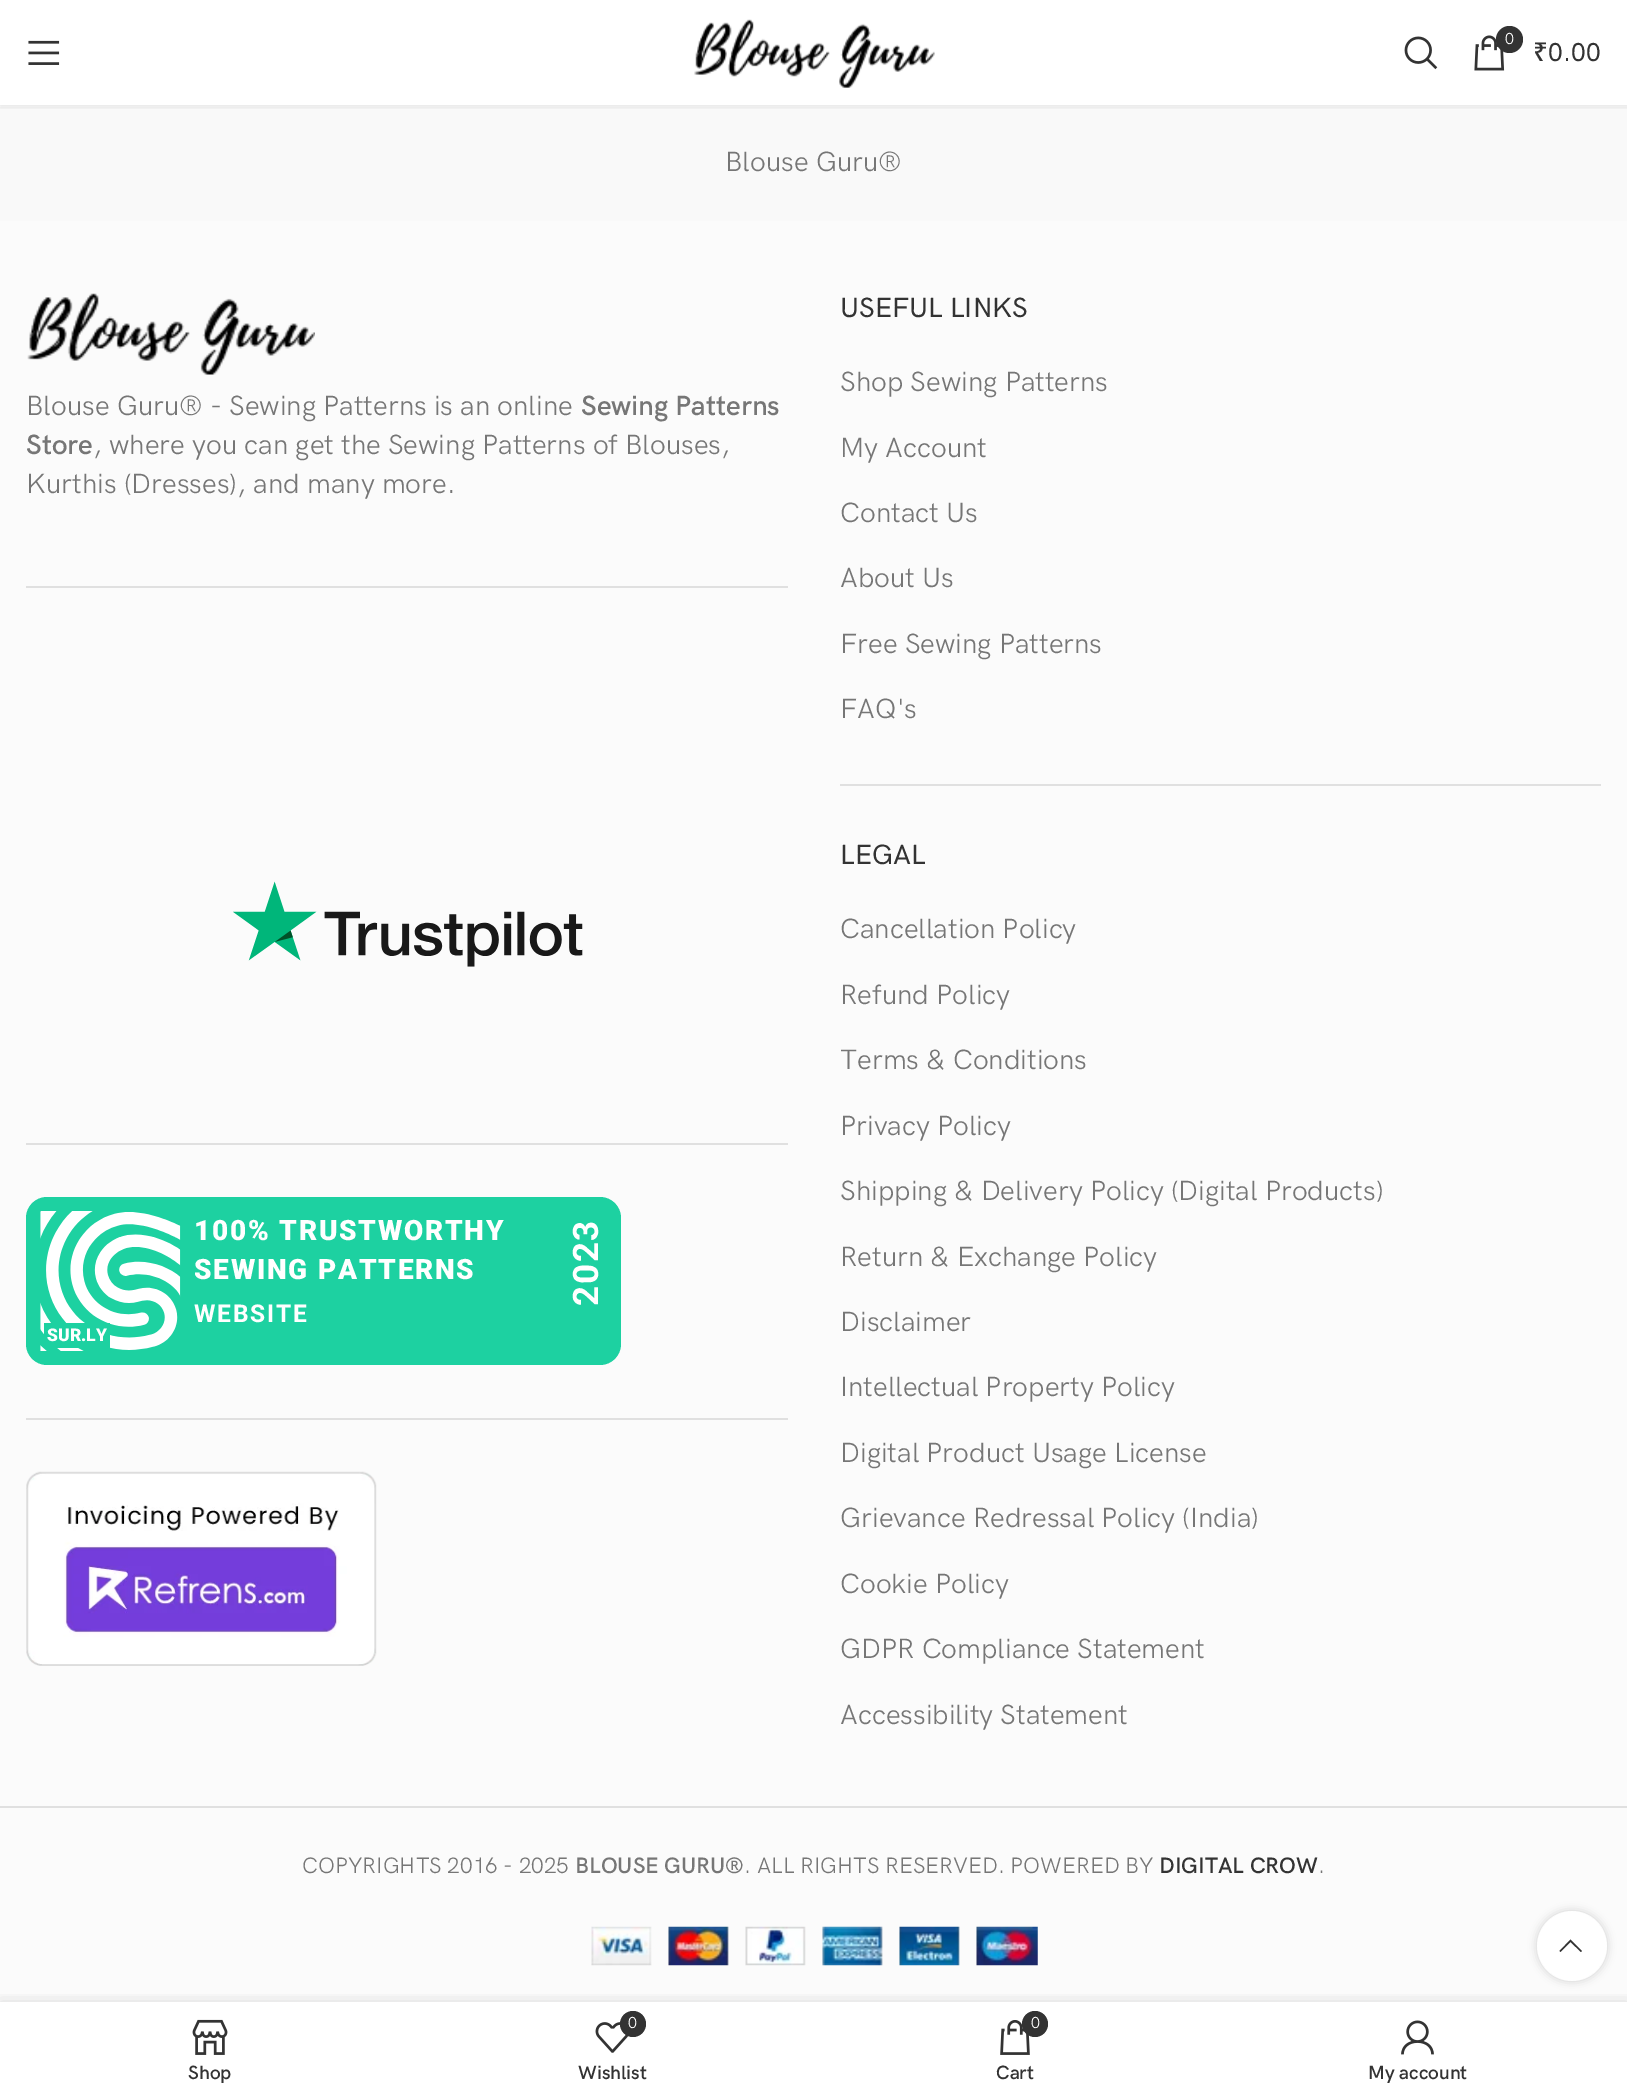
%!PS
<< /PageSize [1627 2097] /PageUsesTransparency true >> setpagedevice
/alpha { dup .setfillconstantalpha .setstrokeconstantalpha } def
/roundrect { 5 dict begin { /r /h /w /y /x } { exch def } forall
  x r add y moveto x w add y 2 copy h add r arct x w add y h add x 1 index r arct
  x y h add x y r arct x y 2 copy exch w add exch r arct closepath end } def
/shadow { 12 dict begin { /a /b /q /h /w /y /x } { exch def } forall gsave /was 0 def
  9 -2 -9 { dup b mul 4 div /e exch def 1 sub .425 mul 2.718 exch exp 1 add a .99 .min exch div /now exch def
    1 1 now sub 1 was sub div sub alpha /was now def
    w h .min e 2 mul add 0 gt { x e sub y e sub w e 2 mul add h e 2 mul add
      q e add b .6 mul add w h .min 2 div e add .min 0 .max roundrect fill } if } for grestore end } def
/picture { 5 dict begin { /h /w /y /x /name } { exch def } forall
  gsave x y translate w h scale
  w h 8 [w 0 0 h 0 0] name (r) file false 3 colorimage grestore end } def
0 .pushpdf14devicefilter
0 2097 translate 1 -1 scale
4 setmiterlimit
1 setgray
0 0 1627 2097 rectfill
0.976 setgray
0 107 1627 114 rectfill
gsave
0 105 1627 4 rectclip
0 setgray
0 2 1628 105 0 2.5 0.1 shadow
grestore
(img1.rgb) 28 40 32 25 picture
(img2.rgb) 694 19 241 69 picture
(img3.rgb) 1404 36 34 34 picture
(img4.rgb) 1474 35 31 36 picture
0.2 setgray
newpath 1509.5 39.5 13.5 0 360 arc closepath fill
/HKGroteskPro-Regular [16 0 0 -16 0 0] selectfont
1 setgray
1505 44 moveto (0) show
/NotoSans-Medium [26 0 0 -26 0 0] selectfont
0.2 setgray
1533 61 moveto (₹) show
/HKGroteskPro-Medium [26 0 0 -26 0 0] selectfont
1548 61 moveto (0.00) show
/HKGroteskPro-Regular [28 0 0 -28 0 0] selectfont
0.463 setgray
725 171 moveto (Blouse Guru®) show
0.984 setgray
0 221 1627 1781 rectfill
0.878 setgray
26 586 762 2 rectfill
(img5.rgb) 27 293 288 82 picture
0.463 setgray
26 415 moveto (Blouse Guru® - Sewing Patterns is an online) show
/HKGroteskPro-SemiBold [28 0 0 -28 0 0] selectfont
581 415 moveto (Sewing Patterns) show
26 454 moveto (Store) show
/HKGroteskPro-Regular [28 0 0 -28 0 0] selectfont
93 454 moveto (, where you can get the Sewing Patterns of Blouses,) show
26 493 moveto (Kurthis \(Dresses\), and many more.) show
0.878 setgray
26 1143 762 2 rectfill
(img6.rgb) 233 881 350 86 picture
26 1418 762 2 rectfill
0.114 0.82 0.631 setrgbcolor
26 1197 595 168 21 roundrect fill
/Roboto-Black [28 0 0 -28 0 0] selectfont
1 setgray
194 1240 moveto 1.75 0 (100% TRUSTWORTHY) ashow
194 1279 moveto 1.75 0 (SEWING PATTERNS) ashow
/Roboto-Bold [35 0 0 -35 0 0] selectfont
gsave 598 1306 translate -90 rotate 0 0 moveto 1.75 0 (2023) ashow grestore
/Roboto-Bold [24.5 0 0 -24.5 0 0] selectfont
194 1322 moveto 1.75 0 (WEBSITE) ashow
(img7.rgb) 40 1211 141 140 picture
0.114 0.82 0.631 setrgbcolor
44 1323 66 25 rectfill
/Roboto-Black [17.5 0 0 -17.5 0 0] selectfont
1 setgray
47 1341 moveto (SUR.LY) show
(img8.rgb) 26 1471 351 195 picture
0.878 setgray
840 784 761 2 rectfill
/HKGroteskPro-Medium [28 0 0 -28 0 0] selectfont
0.2 setgray
840 317 moveto (USEFUL LINKS) show
/HKGroteskPro-Regular [28 0 0 -28 0 0] selectfont
0.463 setgray
840 391 moveto (Shop Sewing Patterns) show
840 457 moveto (My Account) show
840 522 moveto (Contact Us) show
840 587 moveto (About Us) show
840 653 moveto (Free Sewing Patterns) show
840 718 moveto (FAQ's) show
/HKGroteskPro-Medium [28 0 0 -28 0 0] selectfont
0.2 setgray
840 864 moveto (LEGAL) show
/HKGroteskPro-Regular [28 0 0 -28 0 0] selectfont
0.463 setgray
840 938 moveto (Cancellation Policy) show
840 1004 moveto (Refund Policy) show
840 1069 moveto (Terms & Conditions) show
840 1135 moveto (Privacy Policy) show
840 1200 moveto (Shipping & Delivery Policy \(Digital Products\)) show
840 1266 moveto (Return & Exchange Policy) show
840 1331 moveto (Disclaimer) show
840 1396 moveto (Intellectual Property Policy) show
840 1462 moveto (Digital Product Usage License) show
840 1527 moveto (Grievance Redressal Policy \(India\)) show
840 1593 moveto (Cookie Policy) show
840 1658 moveto (GDPR Compliance Statement) show
840 1724 moveto (Accessibility Statement) show
0.878 setgray
0 1806 1627 2 rectfill
/HKGroteskPro-Regular [22.4 0 0 -22.4 0 0] selectfont
0.463 setgray
302 1873 moveto (COPYRIGHTS 2016 - 2025) show
/HKGroteskPro-SemiBold [22.4 0 0 -22.4 0 0] selectfont
575 1873 moveto (BLOUSE GURU®) show
/HKGroteskPro-Regular [22.4 0 0 -22.4 0 0] selectfont
744 1873 moveto (. ALL RIGHTS RESERVED. POWERED BY) show
/HKGroteskPro-SemiBold [22.4 0 0 -22.4 0 0] selectfont
0.2 setgray
1159 1873 moveto (DIGITAL CROW) show
/HKGroteskPro-Regular [22.4 0 0 -22.4 0 0] selectfont
0.463 setgray
1318 1873 moveto (.) show
(img9.rgb) 591 1926 447 40 picture
gsave
newpath 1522 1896 moveto 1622 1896 lineto 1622 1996 lineto 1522 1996 lineto closepath 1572 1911 moveto 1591.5 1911 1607 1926.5 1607 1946 curveto 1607 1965.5 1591.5 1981 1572 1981 curveto 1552.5 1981 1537 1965.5 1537 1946 curveto 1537 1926.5 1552.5 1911 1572 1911 curveto closepath eoclip newpath
0 setgray
1537 1911 70 70 35 4.5 0.17 shadow
grestore
0.9 alpha
1 setgray
newpath 1572 1946 35 0 360 arc closepath fill
1 alpha
0.2 setgray
newpath 1581 1952 moveto 1582 1951 lineto 1570.5 1939.5 lineto 1559.5 1951 lineto 1560.5 1952 lineto 1570.5 1942 lineto closepath fill
gsave
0 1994 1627 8 rectclip
0 setgray
0 2002 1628 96 0 8 0.12 shadow
grestore
(img10.rgb) 192 2019 36 36 picture
/HKGroteskPro-SemiBold [19.25 0 0 -19.25 0 0] selectfont
188 2079 moveto (Shop) show
(img11.rgb) 595 2022 34 31 picture
newpath 633 2024 13 0 360 arc closepath fill
/HKGroteskPro-Regular [16 0 0 -16 0 0] selectfont
1 setgray
628 2028 moveto (0) show
/HKGroteskPro-SemiBold [19.25 0 0 -19.25 0 0] selectfont
0.2 setgray
578 2079 moveto (Wishlist) show
(img12.rgb) 1000 2020 30 35 picture
newpath 1035 2024 13 0 360 arc closepath fill
/HKGroteskPro-Regular [16 0 0 -16 0 0] selectfont
1 setgray
1031 2028 moveto (0) show
/HKGroteskPro-SemiBold [19.25 0 0 -19.25 0 0] selectfont
0.2 setgray
996 2079 moveto (Cart) show
(img13.rgb) 1401 2020 33 35 picture
1368 2079 moveto (My account) show
.poppdf14devicefilter showpage
